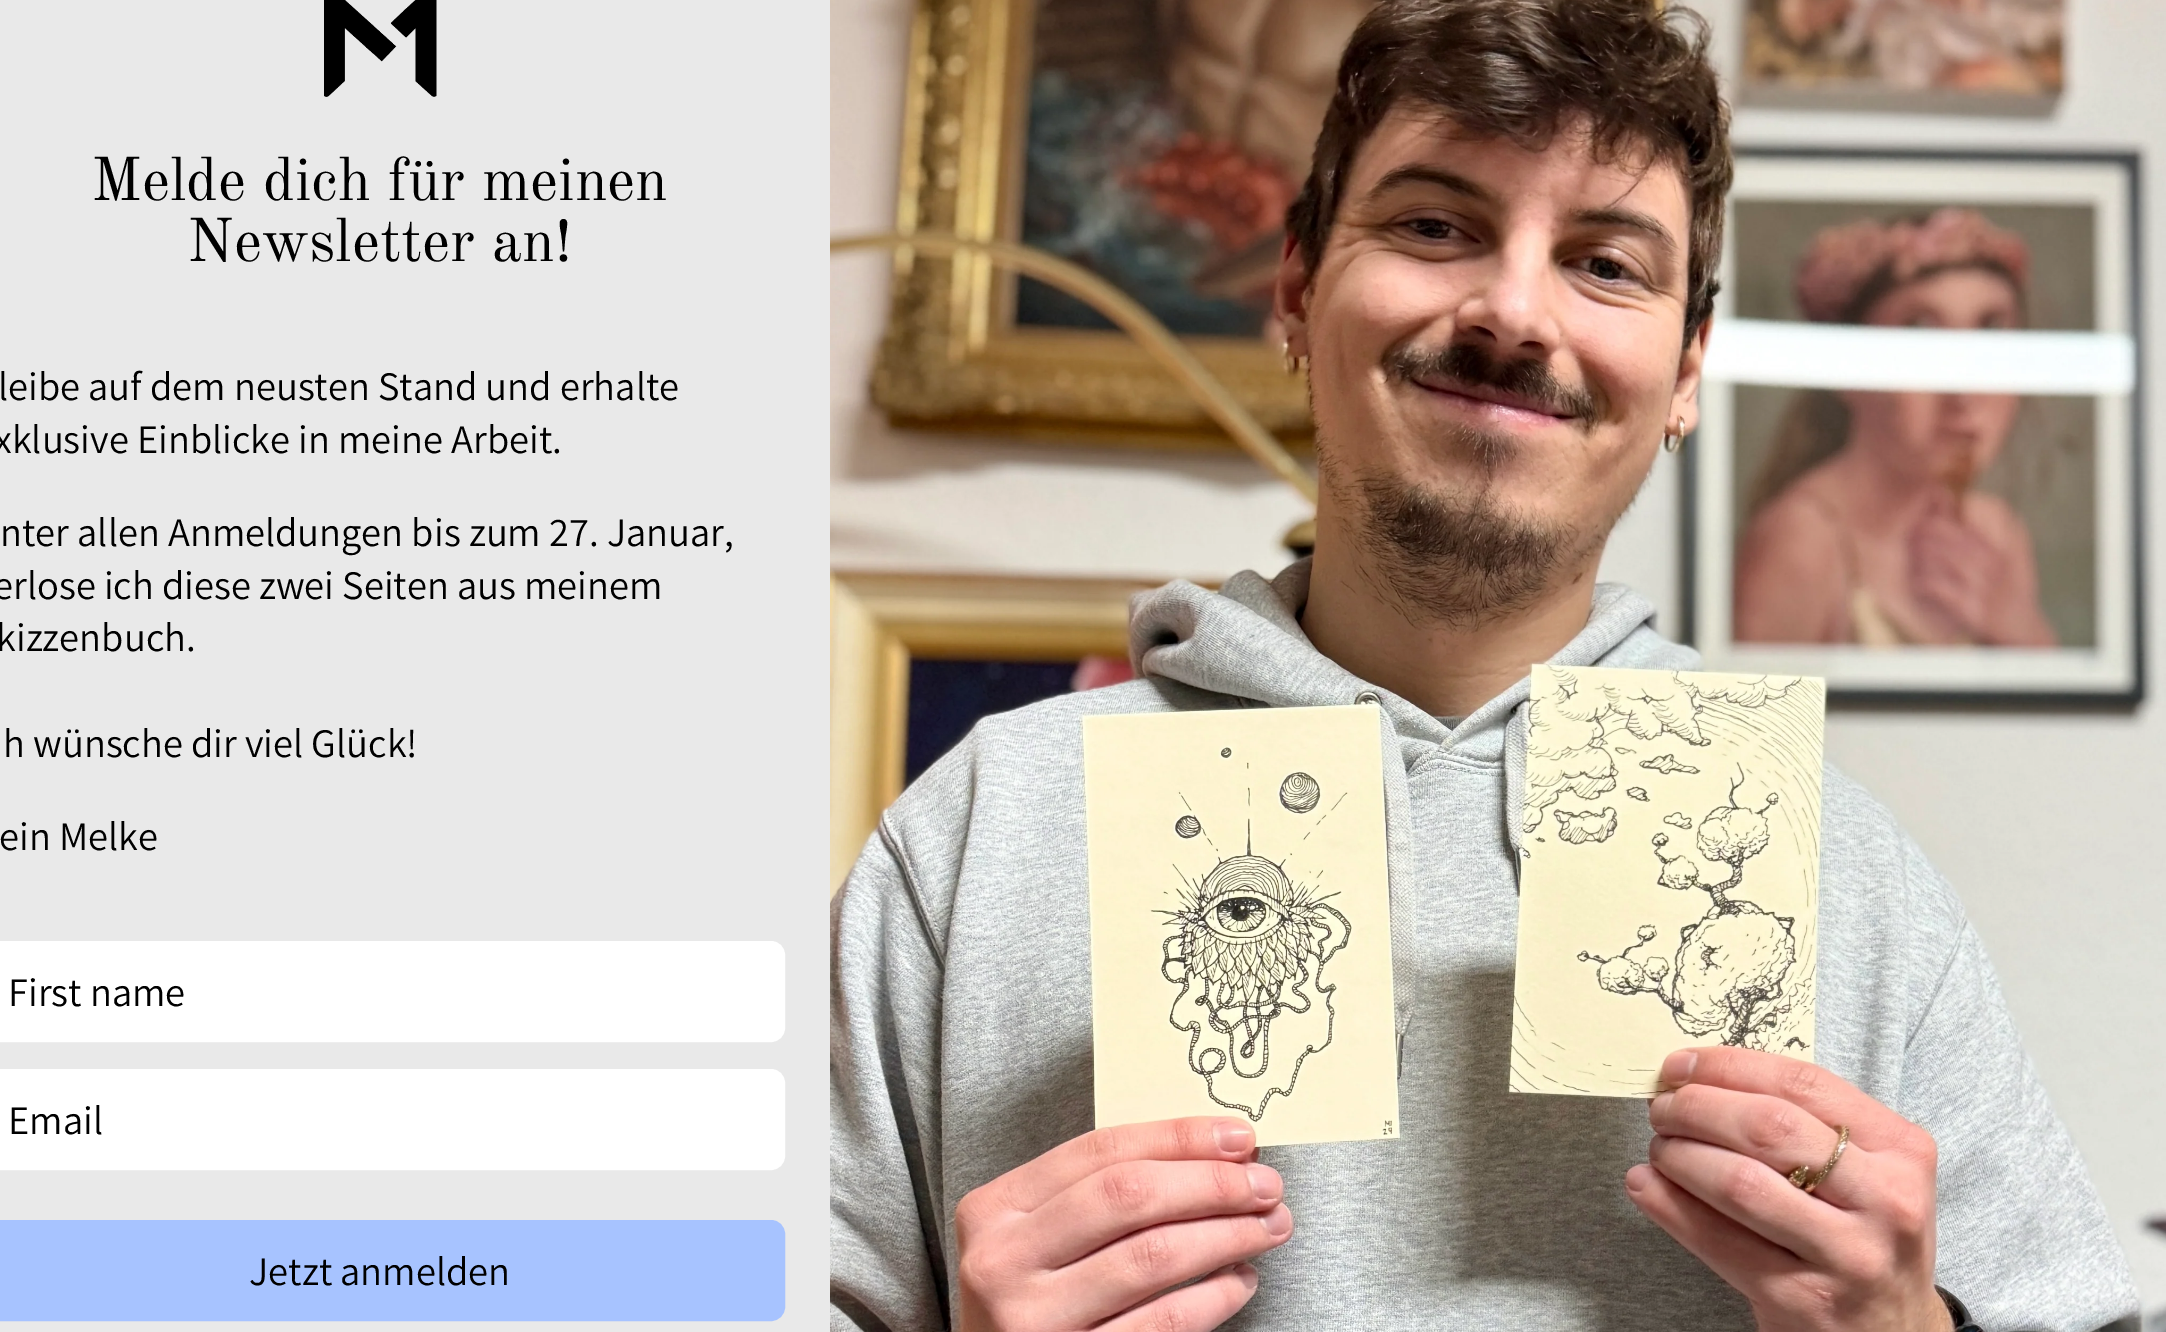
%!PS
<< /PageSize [2166 1332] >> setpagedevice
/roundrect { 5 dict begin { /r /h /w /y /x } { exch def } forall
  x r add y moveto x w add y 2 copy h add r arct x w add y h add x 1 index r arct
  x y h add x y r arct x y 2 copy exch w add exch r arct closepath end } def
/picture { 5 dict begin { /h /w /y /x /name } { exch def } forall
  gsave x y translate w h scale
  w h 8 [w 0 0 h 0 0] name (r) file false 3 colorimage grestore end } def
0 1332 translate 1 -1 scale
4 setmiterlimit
1 setgray
0 0 2166 1332 rectfill
0.914 setgray
0 0 830 1332 rectfill
(img1.rgb) 324 0 113 97 picture
/OldStandardTT-Regular [60.75 0 0 -60.75 0 0] selectfont
0 setgray
91 200 moveto (Melde dich für meinen) show
187 261 moveto (Newsletter an!) show
/Assistant-Regular [40.5 0 0 -40.5 0 0] selectfont
-2 400 moveto (leibe auf dem neusten Stand und erhalte) show
-6 453 moveto (xklusive Einblicke in meine Arbeit.) show
0 546 moveto (nter allen Anmeldungen bis zum 27. Januar,) show
-7 599 moveto (erlose ich diese zwei Seiten aus meinem) show
-4 651 moveto (kizzenbuch.) show
3 757 moveto (h wünsche dir viel Glück!) show
-1 850 moveto (ein Melke) show
1 setgray
-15 942 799 99 13 roundrect gsave fill grestore
2 setlinewidth
stroke
0 setgray
8 1006 moveto (First name) show
1 setgray
-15 1070 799 99 13 roundrect gsave fill grestore
stroke
0 setgray
8 1134 moveto (Email) show
0.655 0.765 1 setrgbcolor
-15 1221 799 99 13 roundrect gsave fill grestore
stroke
0 setgray
249 1285 moveto (Jetzt anmelden) show
(img2.rgb) 830 0 1336 1332 picture
showpage
